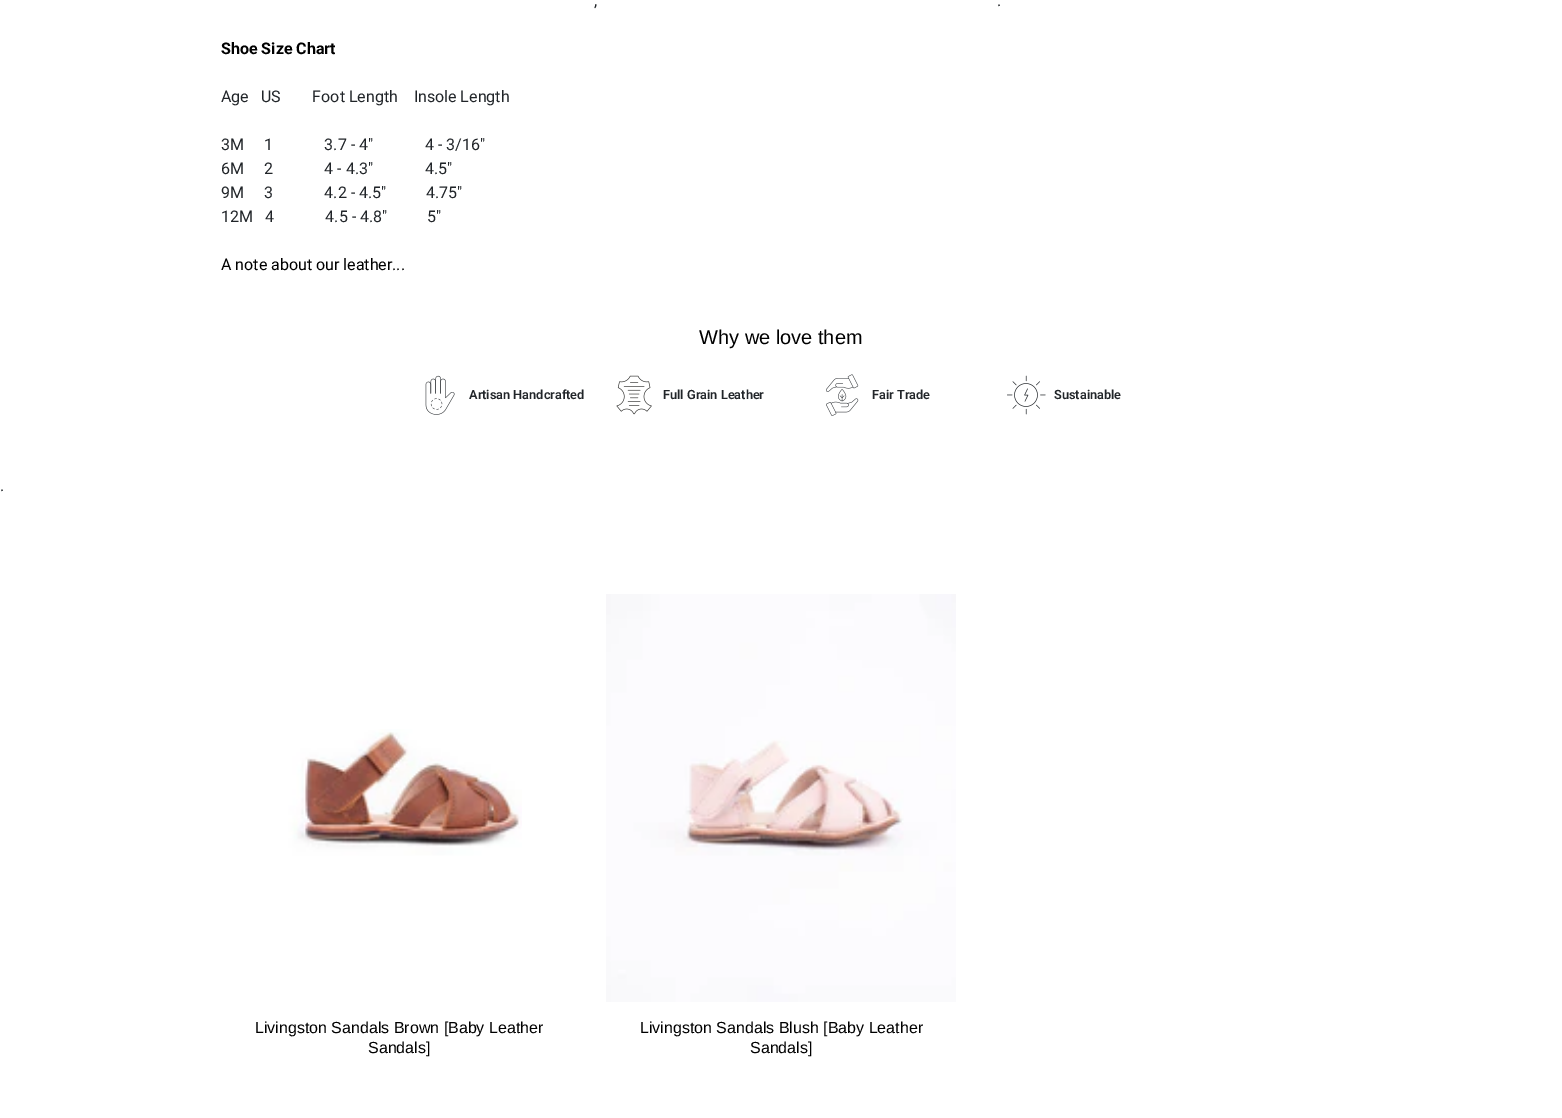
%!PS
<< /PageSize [1562 1118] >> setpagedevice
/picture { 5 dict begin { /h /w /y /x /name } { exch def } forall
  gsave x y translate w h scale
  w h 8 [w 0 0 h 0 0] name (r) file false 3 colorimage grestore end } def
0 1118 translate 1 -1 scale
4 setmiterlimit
1 setgray
0 0 1562 1118 rectfill
/Roboto-Regular [16 0 0 -16 0 0] selectfont
0.129 0.145 0.161 setrgbcolor
594 6 moveto (,) show
997 6 moveto (.) show
/Roboto-Bold [16 0 0 -16 0 0] selectfont
0 setgray
221 54 moveto (Shoe Size Chart) show
/Roboto-Regular [16 0 0 -16 0 0] selectfont
0.129 0.145 0.161 setrgbcolor
221 102 moveto (Age   US        Foot Length    Insole Length) show
221 150 moveto (3M     1             3.7 - 4"             4 - 3/16") show
221 174 moveto (6M     2             4 - 4.3"             4.5") show
221 198 moveto (9M     3             4.2 - 4.5"          4.75") show
221 222 moveto (12M   4             4.5 - 4.8"          5") show
0 setgray
221 270 moveto (A note about our leather...) show
/LiberationSans-Regular [20 0 0 -20 0 0] selectfont
699 344 moveto (Why we love them) show
(img1.rgb) 425 375 30 40 picture
/Roboto-SemiBold [12.75 0 0 -12.75 0 0] selectfont
0.129 0.145 0.161 setrgbcolor
469 399 moveto (Artisan Handcrafted) show
(img2.rgb) 616 375 36 40 picture
663 399 moveto (Full Grain Leather) show
(img3.rgb) 826 374 33 42 picture
872 399 moveto (Fair Trade) show
(img4.rgb) 1007 375 39 40 picture
1054 399 moveto (Sustainable) show
/Roboto-Regular [16 0 0 -16 0 0] selectfont
0 491 moveto (.) show
(img5.rgb) 224 729 298 267 picture
/LiberationSans-Regular [16 0 0 -16 0 0] selectfont
0 setgray
255 1033 moveto (Livingston Sandals Brown [Baby Leather) show
368 1053 moveto (Sandals]) show
(img6.rgb) 606 594 350 408 picture
640 1033 moveto (Livingston Sandals Blush [Baby Leather) show
750 1053 moveto (Sandals]) show
showpage
